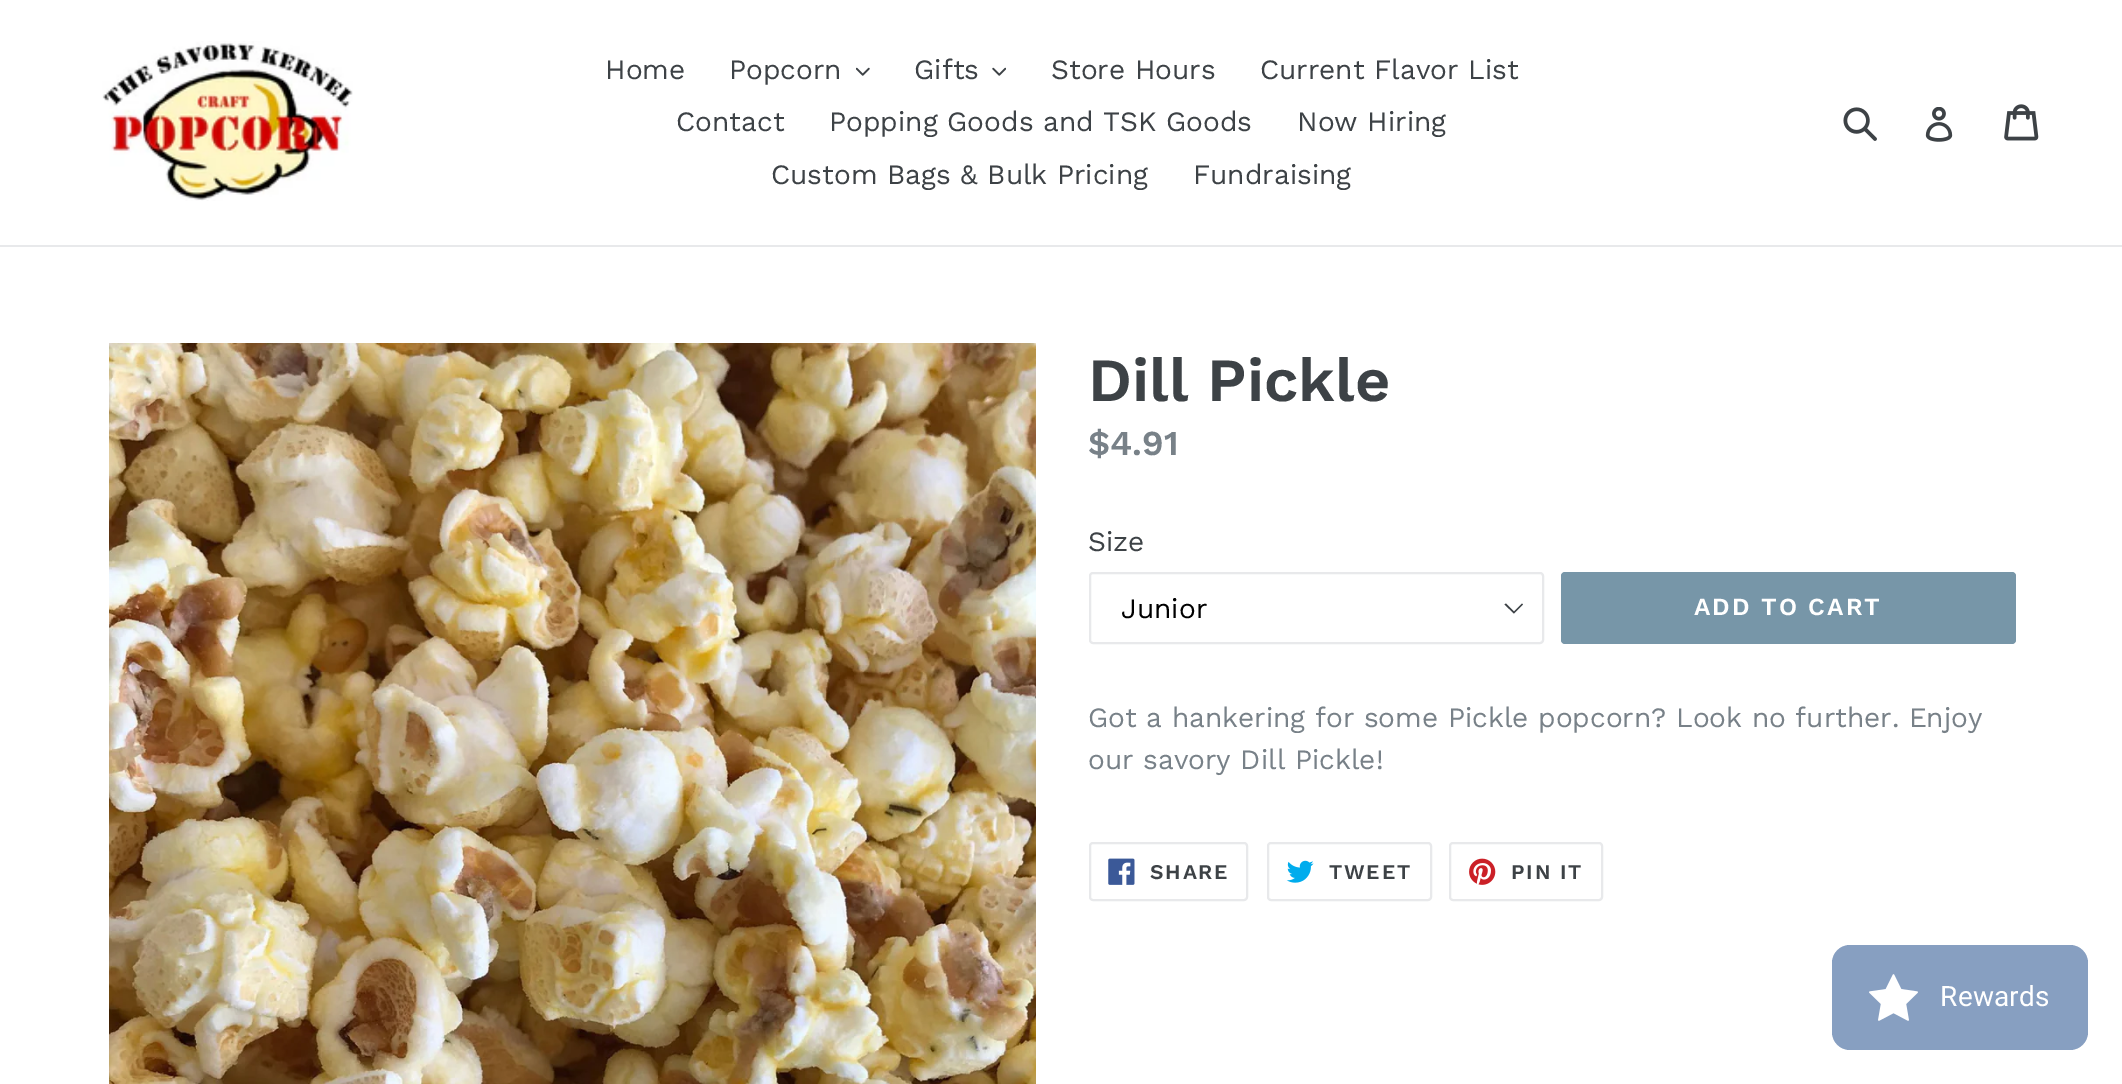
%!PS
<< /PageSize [2122 1084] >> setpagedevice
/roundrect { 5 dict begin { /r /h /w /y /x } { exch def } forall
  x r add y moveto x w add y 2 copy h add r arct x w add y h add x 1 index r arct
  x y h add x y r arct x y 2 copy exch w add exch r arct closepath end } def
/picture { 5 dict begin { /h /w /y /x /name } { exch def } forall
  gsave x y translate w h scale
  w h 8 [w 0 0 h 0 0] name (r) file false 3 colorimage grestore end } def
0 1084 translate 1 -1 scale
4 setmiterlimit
1 setgray
0 0 2122 1084 rectfill
0.91 0.914 0.922 setrgbcolor
0 245 2122 2 rectfill
(img1.rgb) 102 41 251 160 picture
/WorkSans-Regular [28 0 0 -28 0 0] selectfont
0.239 0.259 0.275 setrgbcolor
605 79 moveto (Home) show
729 79 moveto (Popcorn) show
(img2.rgb) 856 67 14 9 picture
914 79 moveto (Gifts) show
(img3.rgb) 992 67 14 9 picture
1051 79 moveto (Store Hours) show
1260 79 moveto (Current Flavor List) show
676 131 moveto (Contact) show
829 131 moveto (Popping Goods and TSK Goods) show
1297 131 moveto (Now Hiring) show
771 184 moveto (Custom Bags & Bulk Pricing) show
1193 184 moveto (Fundraising) show
(img4.rgb) 1843 107 34 34 picture
(img5.rgb) 1925 107 28 35 picture
(img6.rgb) 2004 104 35 37 picture
(img7.rgb) 109 343 927 741 picture
/WorkSans-SemiBold [61.25 0 0 -61.25 0 0] selectfont
1088 401 moveto (Dill Pickle) show
/WorkSans-SemiBold [35 0 0 -35 0 0] selectfont
0.471 0.506 0.533 setrgbcolor
1088 455 moveto ($4.91) show
/WorkSans-Regular [28 0 0 -28 0 0] selectfont
0.239 0.259 0.275 setrgbcolor
1088 551 moveto (Size) show
newpath 1514 613.5 moveto 1504.5 604.5 lineto 1506 603.5 lineto 1514 611.5 lineto 1522 603.5 lineto 1523 604.5 lineto closepath fill
0.91 0.914 0.922 setrgbcolor
2 setlinewidth
1090 573 453 70 3 roundrect stroke
0 setgray
1121 618 moveto (Junior) show
0.467 0.588 0.659 setrgbcolor
1561 572 455 72 4 roundrect fill
/WorkSans-SemiBold [24.5 0 0 -24.5 0 0] selectfont
1 setgray
1694 615 moveto 2 0 (ADD TO CART) ashow
/WorkSans-Regular [28 0 0 -28 0 0] selectfont
0.471 0.506 0.533 setrgbcolor
1088 727 moveto (Got a hankering for some Pickle popcorn? Look no further. Enjoy) show
1088 769 moveto (our savory Dill Pickle!) show
0.91 0.914 0.922 setrgbcolor
1090 843 157 57 3 roundrect stroke
(img8.rgb) 1108 858 27 27 picture
/WorkSans-SemiBold [21 0 0 -21 0 0] selectfont
0.239 0.259 0.275 setrgbcolor
1150 879 moveto 1.75 0 (SHARE) ashow
0.91 0.914 0.922 setrgbcolor
1268 843 163 57 3 roundrect stroke
(img9.rgb) 1286 860 28 23 picture
0.239 0.259 0.275 setrgbcolor
1329 879 moveto 1.75 0 (TWEET) ashow
0.91 0.914 0.922 setrgbcolor
1450 843 152 57 3 roundrect stroke
(img10.rgb) 1469 858 27 27 picture
0.239 0.259 0.275 setrgbcolor
1511 879 moveto 1.75 0 (PIN IT) ashow
0.529 0.624 0.757 setrgbcolor
1832 945 256 105 18 roundrect fill
(img11.rgb) 1869 974 49 47 picture
/Roboto-Regular [28 0 0 -28 0 0] selectfont
1 setgray
1940 1006 moveto 0.25 0 (Rewards) ashow
showpage
